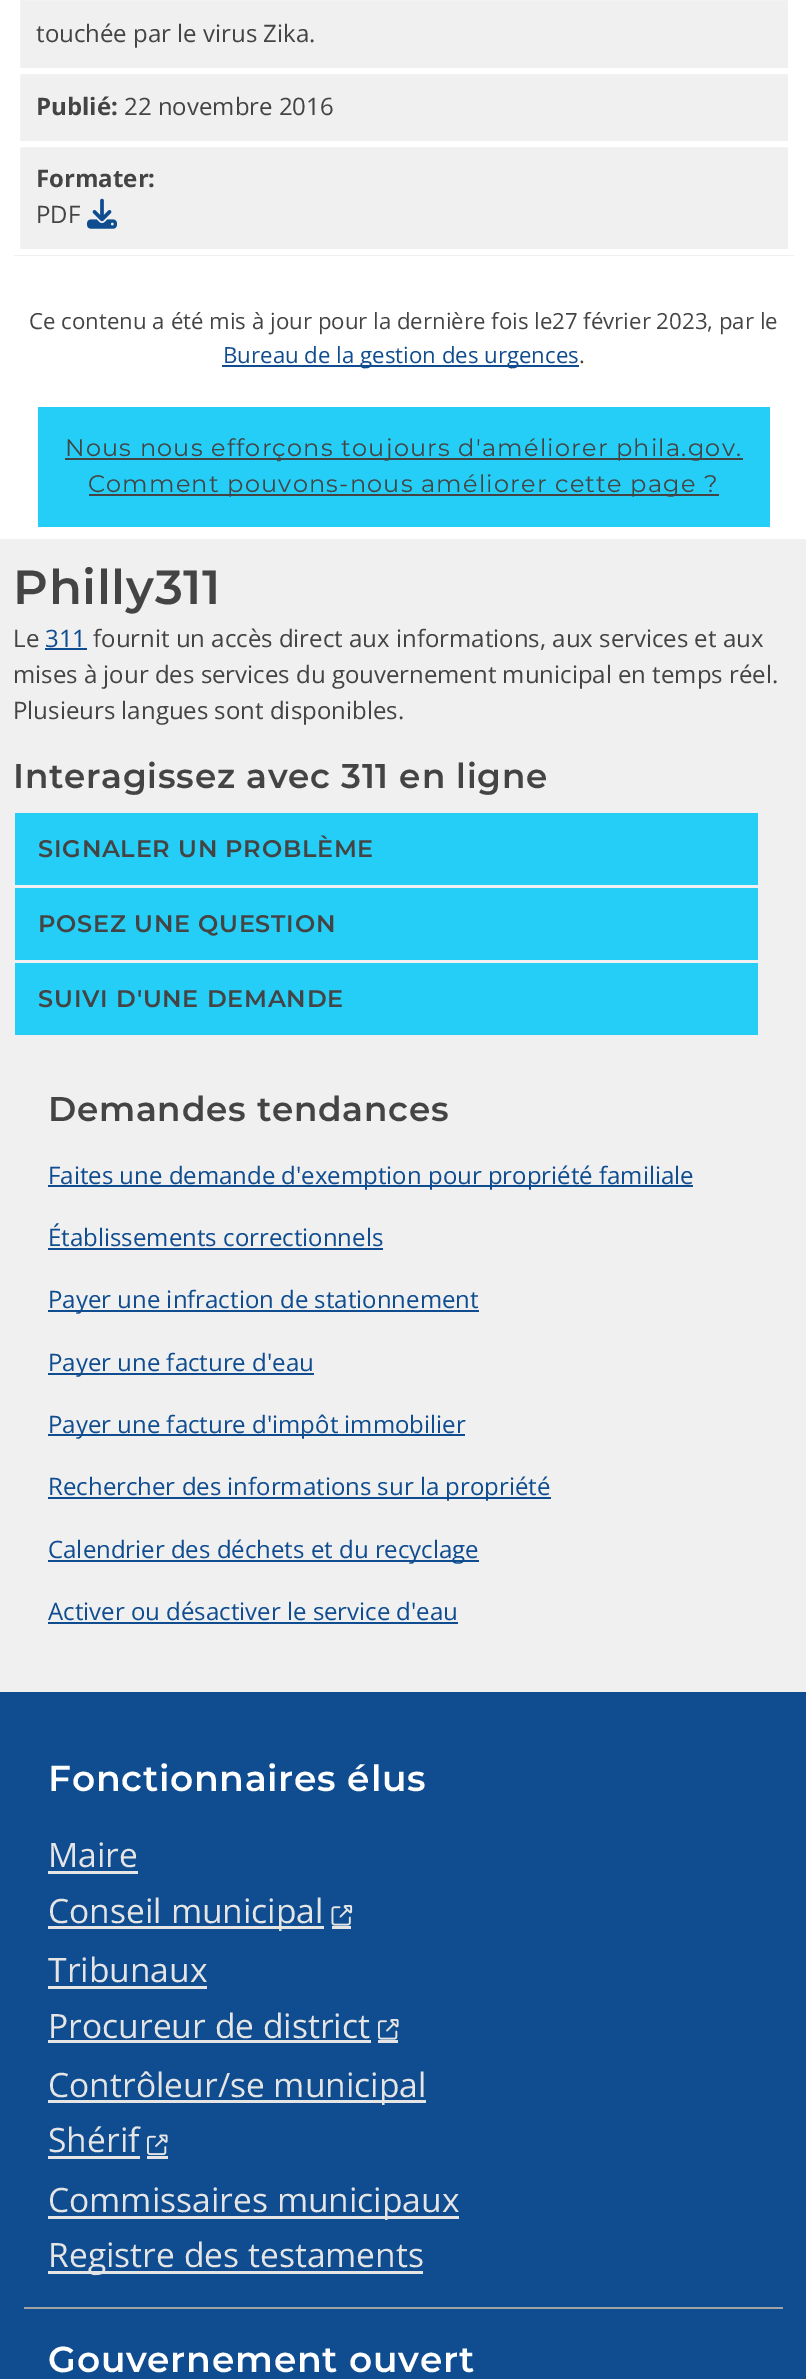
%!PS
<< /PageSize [806 2379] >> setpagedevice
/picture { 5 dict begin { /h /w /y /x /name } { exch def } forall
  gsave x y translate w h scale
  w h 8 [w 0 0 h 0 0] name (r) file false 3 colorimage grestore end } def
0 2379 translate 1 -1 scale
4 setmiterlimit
1 setgray
0 0 806 2379 rectfill
0.941 setgray
20 0 768 249 rectfill
14 255 780 1 rectfill
1 setgray
3 setlinewidth
18.5 -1.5 771 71 rectstroke
/OpenSans-Regular [24 0 0 -24 0 0] selectfont
0.267 setgray
36 42 moveto (touchée par le virus Zika.) show
1 setgray
18.5 72.5 771 70 rectstroke
/OpenSans-Bold [24 0 0 -24 0 0] selectfont
0.267 setgray
36 115 moveto (Publié:) show
/OpenSans-Regular [24 0 0 -24 0 0] selectfont
124 115 moveto (22 novembre 2016) show
1 setgray
18.5 145.5 771 105 rectstroke
/OpenSans-Bold [24 0 0 -24 0 0] selectfont
0.267 setgray
36 187 moveto (Formater:) show
/OpenSans-Regular [24 0 0 -24 0 0] selectfont
36 223 moveto (PDF) show
(img1.rgb) 87 198 30 31 picture
/OpenSans-Regular [22.25 0 0 -22.25 0 0] selectfont
29 329 moveto (Ce contenu a été mis à jour pour la dernière fois le) show
552 329 moveto (27 février 2023, par le) show
0.059 0.302 0.565 setrgbcolor
222 365 357 2 rectfill
223 363 moveto (Bureau de la gestion des urgences) show
0.267 setgray
579 363 moveto (.) show
0.145 0.808 0.969 setrgbcolor
38 407 732 120 rectfill
0.267 setgray
65 458 678 2 rectfill
/Montserrat-Regular [24 0 0 -24 0 0] selectfont
65 456 moveto 1.2 0 (Nous nous efforçons toujours d'améliorer phila.gov.) ashow
89 494 630 2 rectfill
88 492 moveto 1.2 0 (Comment pouvons-nous améliorer cette page ?) ashow
0.941 setgray
0 539 806 1153 rectfill
/Montserrat-Thin [48 0 0 -48 0 0] selectfont
0.267 setgray
13 604 moveto 0.75 0 (Philly311) ashow
/OpenSans-Regular [24 0 0 -24 0 0] selectfont
13 647 moveto (Le) show
0.059 0.302 0.565 setrgbcolor
45 647 moveto (311) show
45 648 42 2 rectfill
0.267 setgray
93 647 moveto (fournit un accès direct aux informations, aux services et aux) show
13 683 moveto (mises à jour des services du gouvernement municipal en temps réel.) show
13 719 moveto (Plusieurs langues sont disponibles.) show
/Montserrat-Thin [34.25 0 0 -34.25 0 0] selectfont
13 788 moveto 0.75 0 (Interagissez avec 311 en ligne) ashow
0.145 0.808 0.969 setrgbcolor
15 813 743 72 rectfill
/Montserrat-Thin [24 0 0 -24 0 0] selectfont
0.267 setgray
38 857 moveto 0.75 0 (SIGNALER UN PROBLÈME) ashow
0.145 0.808 0.969 setrgbcolor
15 888 743 72 rectfill
0.267 setgray
38 932 moveto 0.75 0 (POSEZ UNE QUESTION) ashow
0.145 0.808 0.969 setrgbcolor
15 963 743 72 rectfill
0.267 setgray
38 1007 moveto 0.75 0 (SUIVI D'UNE DEMANDE) ashow
/Montserrat-Thin [34.25 0 0 -34.25 0 0] selectfont
48 1121 moveto 0.75 0 (Demandes tendances) ashow
0.059 0.302 0.565 setrgbcolor
48 1185 645 2 rectfill
/OpenSans-Regular [24 0 0 -24 0 0] selectfont
48 1184 moveto (Faites une demande d'exemption pour propriété familiale) show
48 1246 moveto (Établissements correctionnels) show
48 1248 335 2 rectfill
48 1310 431 2 rectfill
48 1308 moveto (Payer une infraction de stationnement) show
48 1373 266 2 rectfill
48 1371 moveto (Payer une facture d'eau) show
48 1434 417 2 rectfill
48 1433 moveto (Payer une facture d'impôt immobilier) show
48 1497 503 2 rectfill
48 1495 moveto (Rechercher des informations sur la propriété) show
48 1560 431 2 rectfill
48 1558 moveto (Calendrier des déchets et du recyclage) show
48 1620 moveto (Activer ou désactiver le service d'eau) show
48 1622 410 2 rectfill
0 1692 806 687 rectfill
0.635 setgray
24 2307 759 2 rectfill
/Montserrat-Thin [36 0 0 -36 0 0] selectfont
1 setgray
48 1791 moveto 0.75 0 (Fonctionnaires élus) ashow
/OpenSans-Regular [33.6 0 0 -33.6 0 0] selectfont
0.898 setgray
48 1867 moveto (Maire) show
48 1871 90 3 rectfill
48 1926 276 3 rectfill
48 1923 moveto (Conseil municipal) show
332 1926 19 3 rectfill
(img2.rgb) 331 1905 22 21 picture
48 1982 moveto (Tribunaux) show
48 1986 159 3 rectfill
48 2038 moveto (Procureur de district) show
48 2040 323 3 rectfill
378 2040 20 3 rectfill
(img3.rgb) 378 2019 21 21 picture
48 2100 378 3 rectfill
48 2097 moveto (Contrôleur/se municipal) show
48 2152 moveto (Shérif) show
48 2156 92 3 rectfill
147 2156 21 3 rectfill
(img4.rgb) 147 2134 21 22 picture
48 2216 411 3 rectfill
48 2212 moveto (Commissaires municipaux) show
48 2271 375 3 rectfill
48 2267 moveto (Registre des testaments) show
/Montserrat-Thin [36 0 0 -36 0 0] selectfont
1 setgray
48 2372 moveto 0.75 0 (Gouvernement ouvert) ashow
showpage
